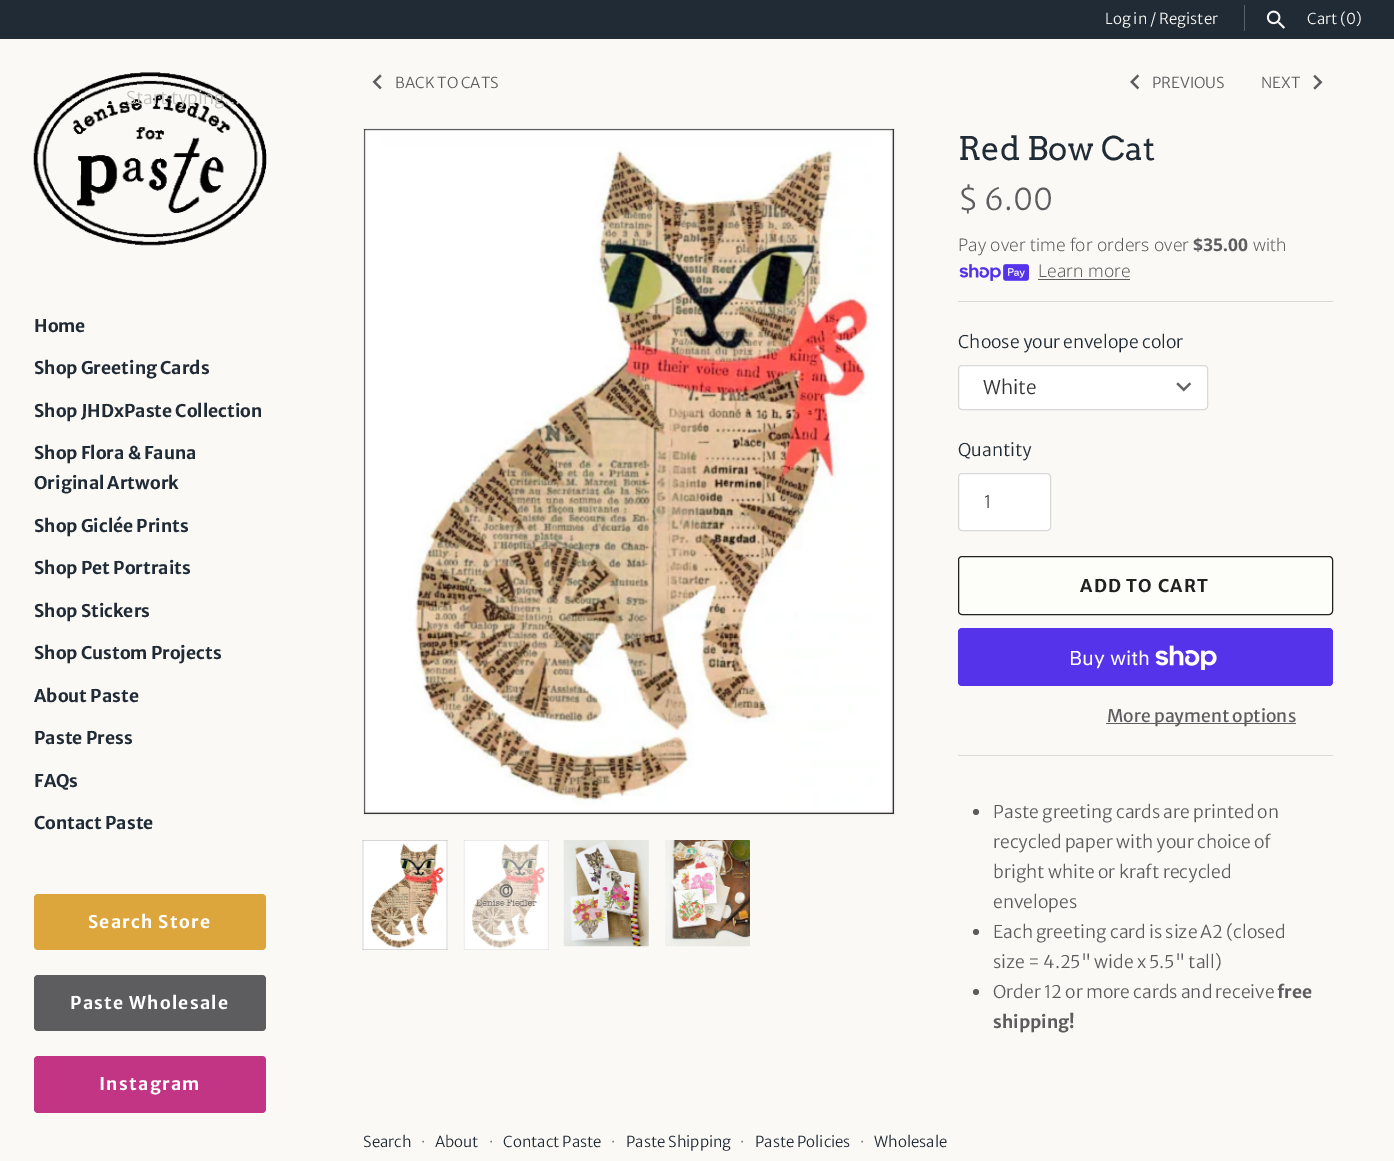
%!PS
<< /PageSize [1394 1161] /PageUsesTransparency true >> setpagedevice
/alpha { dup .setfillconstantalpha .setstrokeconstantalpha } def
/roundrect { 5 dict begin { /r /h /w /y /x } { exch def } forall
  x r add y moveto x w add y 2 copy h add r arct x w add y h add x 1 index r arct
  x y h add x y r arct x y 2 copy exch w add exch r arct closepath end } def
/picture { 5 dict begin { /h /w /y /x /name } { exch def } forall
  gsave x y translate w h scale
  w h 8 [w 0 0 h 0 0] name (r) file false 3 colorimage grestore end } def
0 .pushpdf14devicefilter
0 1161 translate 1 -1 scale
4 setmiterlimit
0.98 0.976 0.961 setrgbcolor
0 0 1394 1161 rectfill
0.129 0.169 0.212 setrgbcolor
0 0 1394 39 rectfill
/MerriweatherSans-Light [15 0 0 -15 0 0] selectfont
0.98 0.976 0.961 setrgbcolor
1105 24 moveto (Log in / Register) show
0.341 0.373 0.4 setrgbcolor
1244 5 1 26 rectfill
(img1.rgb) 1266 10 19 19 picture
0.98 0.976 0.961 setrgbcolor
1307 24 moveto (Cart \(0\)) show
(img2.rgb) 33 72 234 174 picture
/MerriweatherSans-Light [17.5 0 0 -17.5 0 0] selectfont
0.757 0.753 0.741 setrgbcolor
126 104 moveto (Start typing...) show
/MerriweatherSans-Bold [17.5 0 0 -17.5 0 0] selectfont
0.129 0.169 0.212 setrgbcolor
34 332 moveto (Home) show
34 374 moveto (Shop Greeting Cards) show
34 417 moveto (Shop JHDxPaste Collection) show
34 459 moveto (Shop Flora & Fauna) show
34 489 moveto (Original Artwork) show
34 532 moveto (Shop Giclée Prints) show
34 574 moveto (Shop Pet Portraits) show
34 617 moveto (Shop Stickers) show
34 659 moveto (Shop Custom Projects) show
34 702 moveto (About Paste) show
34 744 moveto (Paste Press) show
34 787 moveto (FAQs) show
34 829 moveto (Contact Paste) show
0.867 0.651 0.239 setrgbcolor
34 894 232 56 4 roundrect fill
1 setgray
88 928 moveto 1.25 0 (Search Store) ashow
0.365 0.365 0.376 setrgbcolor
34 975 232 56 4 roundrect fill
1 setgray
70 1009 moveto 1.25 0 (Paste Wholesale) ashow
0.757 0.208 0.518 setrgbcolor
34 1056 232 57 4 roundrect fill
1 setgray
99 1090 moveto 1.25 0 (Instagram) ashow
(img3.rgb) 372 74 10 16 picture
/MerriweatherSans-Light [15 0 0 -15 0 0] selectfont
0.365 0.365 0.376 setrgbcolor
395 88 moveto (BACK TO CATS) show
(img4.rgb) 1130 74 10 16 picture
1152 88 moveto (PREVIOUS) show
1261 88 moveto (NEXT) show
(img5.rgb) 1313 74 10 16 picture
0.933 0.929 0.914 setrgbcolor
363.5 128.5 531 686 rectstroke
(img6.rgb) 364 129 530 685 picture
(img7.rgb) 362 840 86 110 picture
(img8.rgb) 463 840 86 110 picture
(img9.rgb) 563 840 86 107 picture
(img10.rgb) 665 840 85 107 picture
/Arvo-Regular [32.5 0 0 -32.5 0 0] selectfont
0.129 0.169 0.212 setrgbcolor
958 160 moveto (Red Bow Cat) show
/MerriweatherSans-Light [30 0 0 -30 0 0] selectfont
0.365 0.365 0.376 setrgbcolor
958 210 moveto ($ 6.00) show
/NotoSans-Light [17.5 0 0 -17.5 0 0] selectfont
958 251 moveto (Pay over time for orders over) show
/NotoSans-Bold [17.5 0 0 -17.5 0 0] selectfont
1193 251 moveto ($35.00) show
/NotoSans-Light [17.5 0 0 -17.5 0 0] selectfont
1253 251 moveto (with) show
(img11.rgb) 959 264 70 17 picture
1038 277 moveto (Learn more) show
1038 279 92 1 rectfill
0.859 0.855 0.843 setrgbcolor
958 301 375 1 rectfill
/MerriweatherSans-Light [17.5 0 0 -17.5 0 0] selectfont
0.129 0.169 0.212 setrgbcolor
958 348 moveto (Choose your envelope color) show
1 setgray
958 365 250 45 4 roundrect fill
(img12.rgb) 1176 382 16 10 picture
0.15 alpha
0 setgray
958.5 365.5 249 44 3.5 roundrect stroke
/MerriweatherSans-Light [19 0 0 -19 0 0] selectfont
1 alpha
0.2 setgray
983 394 moveto (White) show
/MerriweatherSans-Light [17.5 0 0 -17.5 0 0] selectfont
0.129 0.169 0.212 setrgbcolor
958 456 moveto (Quantity) show
1 setgray
958 473 93 58 4 roundrect fill
0.15 alpha
0 setgray
958.5 473.5 92 57 3.5 roundrect stroke
1 alpha
0.267 setgray
984 508 moveto (1) show
0.992 0.992 0.976 setrgbcolor
958.5 556.5 374 58 3.5 roundrect gsave fill grestore
0.129 setgray
stroke
/MerriweatherSans-Bold [17.5 0 0 -17.5 0 0] selectfont
1080 592 moveto 1.25 0 (ADD TO CART) ashow
0.329 0.2 0.922 setrgbcolor
958 628 375 58 4 roundrect fill
/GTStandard-Regular [20 0 0 -20 0 0] selectfont
1 setgray
1069 665 moveto (Buy with) show
(img13.rgb) 1155 645 62 25 picture
0.365 0.365 0.376 setrgbcolor
1106 723 190 1 rectfill
/MerriweatherSans-Regular [17.5 0 0 -17.5 0 0] selectfont
1107 722 moveto (More payment options) show
0.859 0.855 0.843 setrgbcolor
958 755 375 1 rectfill
0.365 0.365 0.376 setrgbcolor
newpath 976 812 3 0 360 arc closepath fill
/MerriweatherSans-Light [17.5 0 0 -17.5 0 0] selectfont
993 818 moveto (Paste greeting cards are printed on) show
993 848 moveto (recycled paper with your choice of) show
993 878 moveto (bright white or kraft recycled) show
993 908 moveto (envelopes) show
newpath 976 932 3 0 360 arc closepath fill
993 938 moveto (Each greeting card is size A2 \(closed) show
993 968 moveto (size = 4.25" wide x 5.5" tall\)) show
newpath 976 992 3 0 360 arc closepath fill
993 998 moveto (Order 12 or more cards and receive) show
/MerriweatherSans-Bold [17.5 0 0 -17.5 0 0] selectfont
1277 998 moveto (free) show
993 1028 moveto (shipping!) show
/MerriweatherSans-Light [15 0 0 -15 0 0] selectfont
0.129 0.169 0.212 setrgbcolor
363 1147 moveto (Search) show
0.427 0.451 0.475 setrgbcolor
421 1147 moveto (·) show
0.129 0.169 0.212 setrgbcolor
435 1147 moveto (About) show
0.427 0.451 0.475 setrgbcolor
489 1147 moveto (·) show
0.129 0.169 0.212 setrgbcolor
503 1147 moveto (Contact Paste) show
0.427 0.451 0.475 setrgbcolor
611 1147 moveto (·) show
0.129 0.169 0.212 setrgbcolor
626 1147 moveto (Paste Shipping) show
0.427 0.451 0.475 setrgbcolor
740 1147 moveto (·) show
0.129 0.169 0.212 setrgbcolor
755 1147 moveto (Paste Policies) show
0.427 0.451 0.475 setrgbcolor
860 1147 moveto (·) show
0.129 0.169 0.212 setrgbcolor
874 1147 moveto (Wholesale) show
.poppdf14devicefilter showpage
